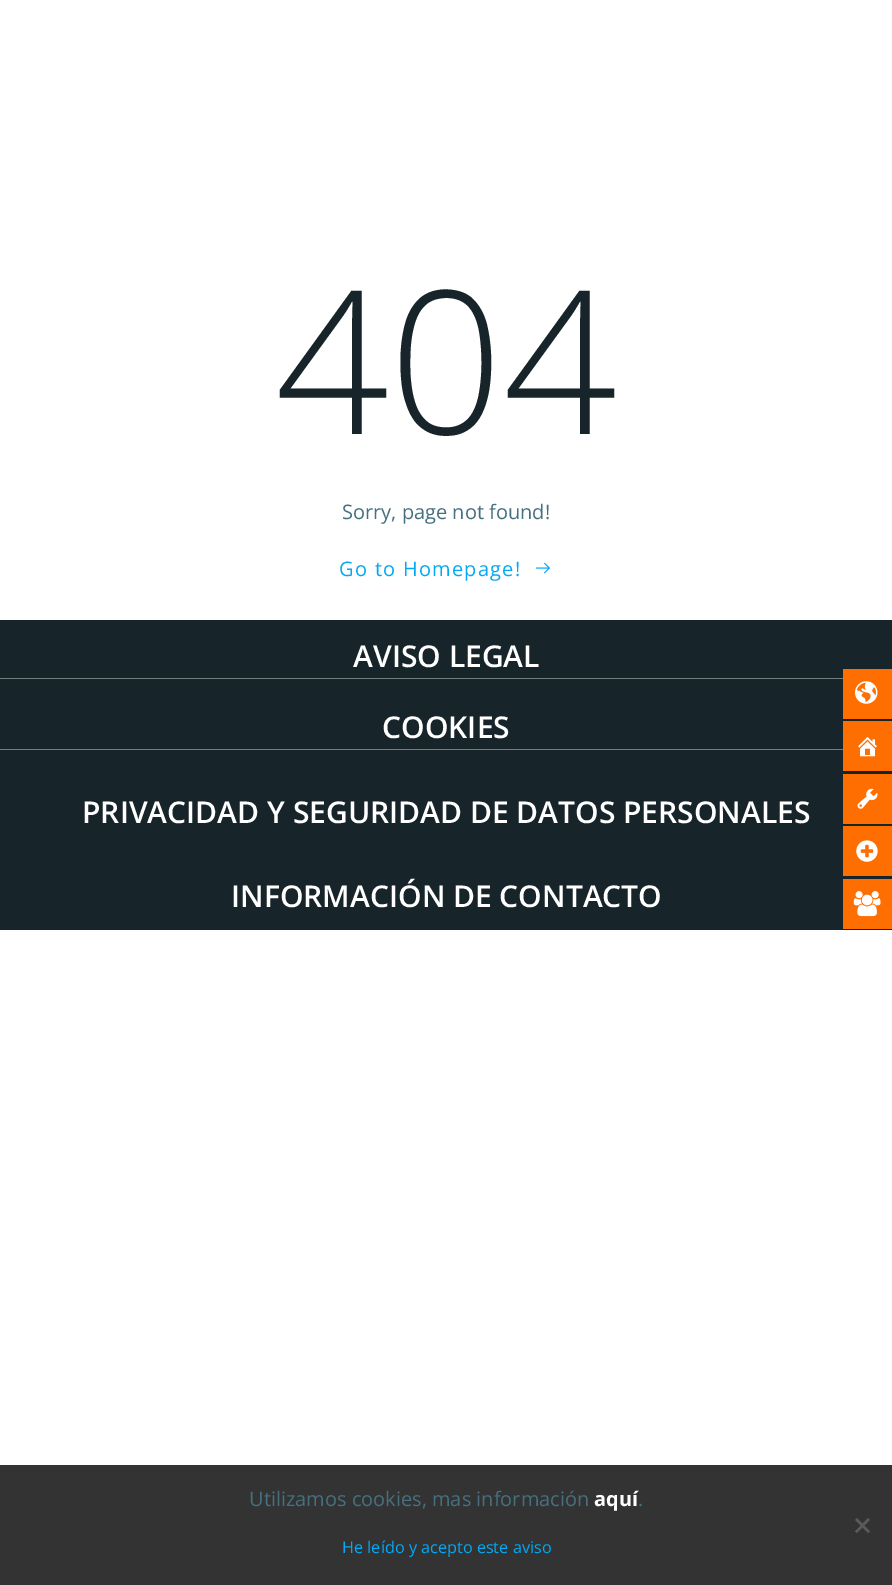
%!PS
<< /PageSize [892 1585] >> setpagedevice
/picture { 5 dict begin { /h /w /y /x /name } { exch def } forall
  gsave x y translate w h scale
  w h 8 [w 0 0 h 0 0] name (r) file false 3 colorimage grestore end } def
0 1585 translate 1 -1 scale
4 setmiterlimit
1 setgray
0 0 892 1585 rectfill
/OpenSans-Light [200 0 0 -200 0 0] selectfont
0.09 0.145 0.165 setrgbcolor
275 434 moveto (404) show
/OpenSans-Regular [20 0 0 -20 0 0] selectfont
0.275 0.439 0.498 setrgbcolor
342 519 moveto (Sorry, page not found!) show
0.012 0.663 0.957 setrgbcolor
339 576 moveto 1.25 0 (Go to Homepage!) ashow
(img1.rgb) 536 562 14 12 picture
0.09 0.145 0.165 setrgbcolor
0 620 892 310 rectfill
0.455 0.486 0.498 setrgbcolor
0 678 843 1 rectfill
/OpenSans-SemiBold [30 0 0 -30 0 0] selectfont
1 setgray
353 667 moveto (AVISO LEGAL) show
0.455 0.486 0.498 setrgbcolor
0 749 843 1 rectfill
1 setgray
382 738 moveto (COOKIES) show
82 823 moveto (PRIVACIDAD Y SEGURIDAD DE DATOS PERSONALES) show
231 907 moveto (INFORMACIÓN DE CONTACTO) show
1 0.431 0.004 setrgbcolor
843 669 49 50 rectfill
(img2.rgb) 855 681 23 23 picture
843 721 49 50 rectfill
(img3.rgb) 858 737 19 20 picture
843 774 49 50 rectfill
(img4.rgb) 857 788 21 21 picture
843 826 49 50 rectfill
(img5.rgb) 856 840 22 22 picture
843 879 49 50 rectfill
(img6.rgb) 853 891 28 26 picture
0.2 setgray
0 1465 892 120 rectfill
/OpenSans-Regular [20 0 0 -20 0 0] selectfont
0.275 0.439 0.498 setrgbcolor
249 1506 moveto (Utilizamos cookies, mas información) show
/OpenSans-Bold [20 0 0 -20 0 0] selectfont
1 setgray
594 1506 moveto (aquí) show
/OpenSans-Regular [20 0 0 -20 0 0] selectfont
0.275 0.439 0.498 setrgbcolor
638 1506 moveto (.) show
0.353 setgray
newpath 868 1518 moveto 870 1520 lineto 857 1533 lineto 855 1531.5 lineto closepath fill
newpath 855 1520 moveto 857 1518 lineto 870 1531.5 lineto 868 1533 lineto closepath fill
/OpenSans-Regular [16.25 0 0 -16.25 0 0] selectfont
0.012 0.663 0.957 setrgbcolor
342 1553 moveto (He leído y acepto este aviso) show
showpage
